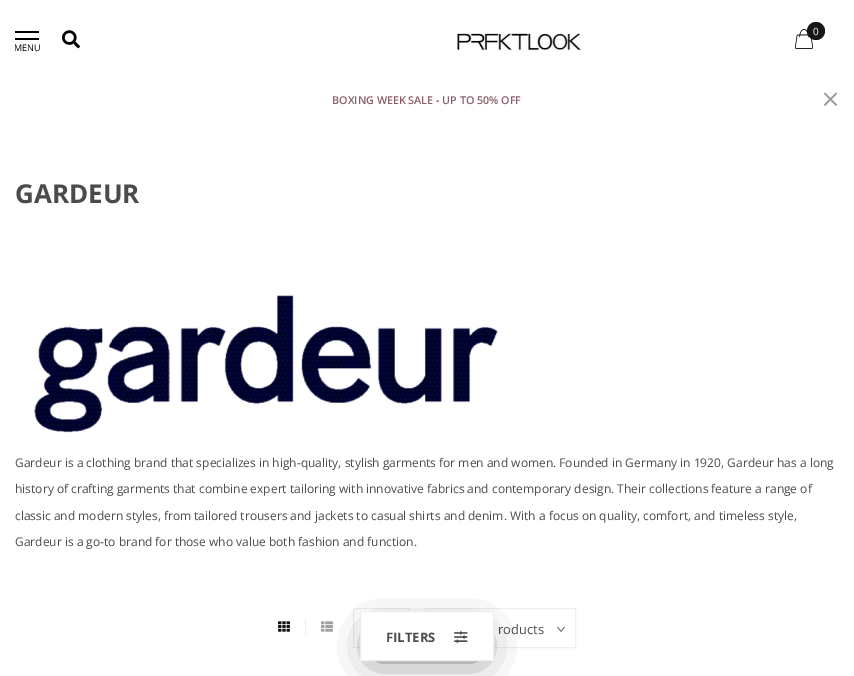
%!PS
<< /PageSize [854 676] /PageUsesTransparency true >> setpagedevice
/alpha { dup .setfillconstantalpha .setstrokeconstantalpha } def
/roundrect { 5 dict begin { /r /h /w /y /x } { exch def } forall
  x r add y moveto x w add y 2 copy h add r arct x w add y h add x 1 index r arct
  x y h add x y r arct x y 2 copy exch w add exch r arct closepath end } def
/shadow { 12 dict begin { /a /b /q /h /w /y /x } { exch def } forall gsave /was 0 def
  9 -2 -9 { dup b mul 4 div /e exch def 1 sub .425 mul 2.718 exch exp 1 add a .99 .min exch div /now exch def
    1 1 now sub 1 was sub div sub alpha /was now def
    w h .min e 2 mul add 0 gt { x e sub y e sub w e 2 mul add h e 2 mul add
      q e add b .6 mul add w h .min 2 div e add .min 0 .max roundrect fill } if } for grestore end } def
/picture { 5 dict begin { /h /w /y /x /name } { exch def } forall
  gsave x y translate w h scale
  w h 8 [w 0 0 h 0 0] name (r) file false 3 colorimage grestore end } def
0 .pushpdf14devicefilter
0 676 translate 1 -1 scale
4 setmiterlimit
1 setgray
0 0 854 676 rectfill
(img1.rgb) 795 29 18 20 picture
0.086 setgray
newpath 816 31 9 0 360 arc closepath fill
/OpenSans-Regular [10 0 0 -10 0 0] selectfont
1 setgray
813 35 moveto (0) show
0 setgray
15 31 24 2 rectfill
15 38 24 2 rectfill
/OpenSans-Regular [9 0 0 -9 0 0] selectfont
14 51 moveto (MENU) show
(img2.rgb) 62 30 18 19 picture
(img3.rgb) 457 33 124 18 picture
/OpenSans-SemiBold [10.75 0 0 -10.75 0 0] selectfont
0.537 0.376 0.404 setrgbcolor
332 104 moveto (BOXING WEEK SALE - UP TO 50% OFF) show
0.6 setgray
newpath 825 92.5 moveto 837 104.5 lineto 836 106 lineto 824 94 lineto closepath fill
newpath 824 104.5 moveto 836 92.5 lineto 837 94 lineto 825 106 lineto closepath fill
/OpenSans-Bold [26 0 0 -26 0 0] selectfont
0.294 setgray
15 203 moveto (GARDEUR) show
(img4.rgb) 34 295 464 138 picture
/OpenSans-Regular [12 0 0 -12 0 0] selectfont
15 467 moveto (Gardeur is a clothing brand that specializes in high-quality, stylish garments for men and women. Founded in Germany in 1920, Gardeur has a long) show
15 493 moveto (history of crafting garments that combine expert tailoring with innovative fabrics and contemporary design. Their collections feature a range of) show
15 520 moveto (classic and modern styles, from tailored trousers and jackets to casual shirts and denim. With a focus on quality, comfort, and timeless style,) show
15 546 moveto (Gardeur is a go-to brand for those who value both fashion and function.) show
0.933 setgray
305 618 1 17 rectfill
(img5.rgb) 278 621 12 11 picture
(img6.rgb) 321 621 12 11 picture
353.5 608.5 56 39 rectstroke
0.4 setgray
0.7 setlinewidth
newpath 564.5 627 moveto 561 631.5 lineto 557.5 627 lineto stroke
0.933 setgray
1 setlinewidth
425.5 608.5 150 39 rectstroke
/OpenSans-Regular [13 0 0 -13 0 0] selectfont
0.294 setgray
498 634 moveto (roducts) show
0 setgray
382 643 90 6 0 20 1 shadow
1 setgray
newpath 360.5 611.5 moveto 493.5 611.5 lineto 493.5 660.5 lineto 360.5 660.5 lineto closepath gsave fill grestore
0.933 setgray
stroke
/OpenSans-Bold [13 0 0 -13 0 0] selectfont
0.294 setgray
386 642 moveto (FILTERS) show
(img7.rgb) 454 631 14 12 picture
.poppdf14devicefilter showpage
